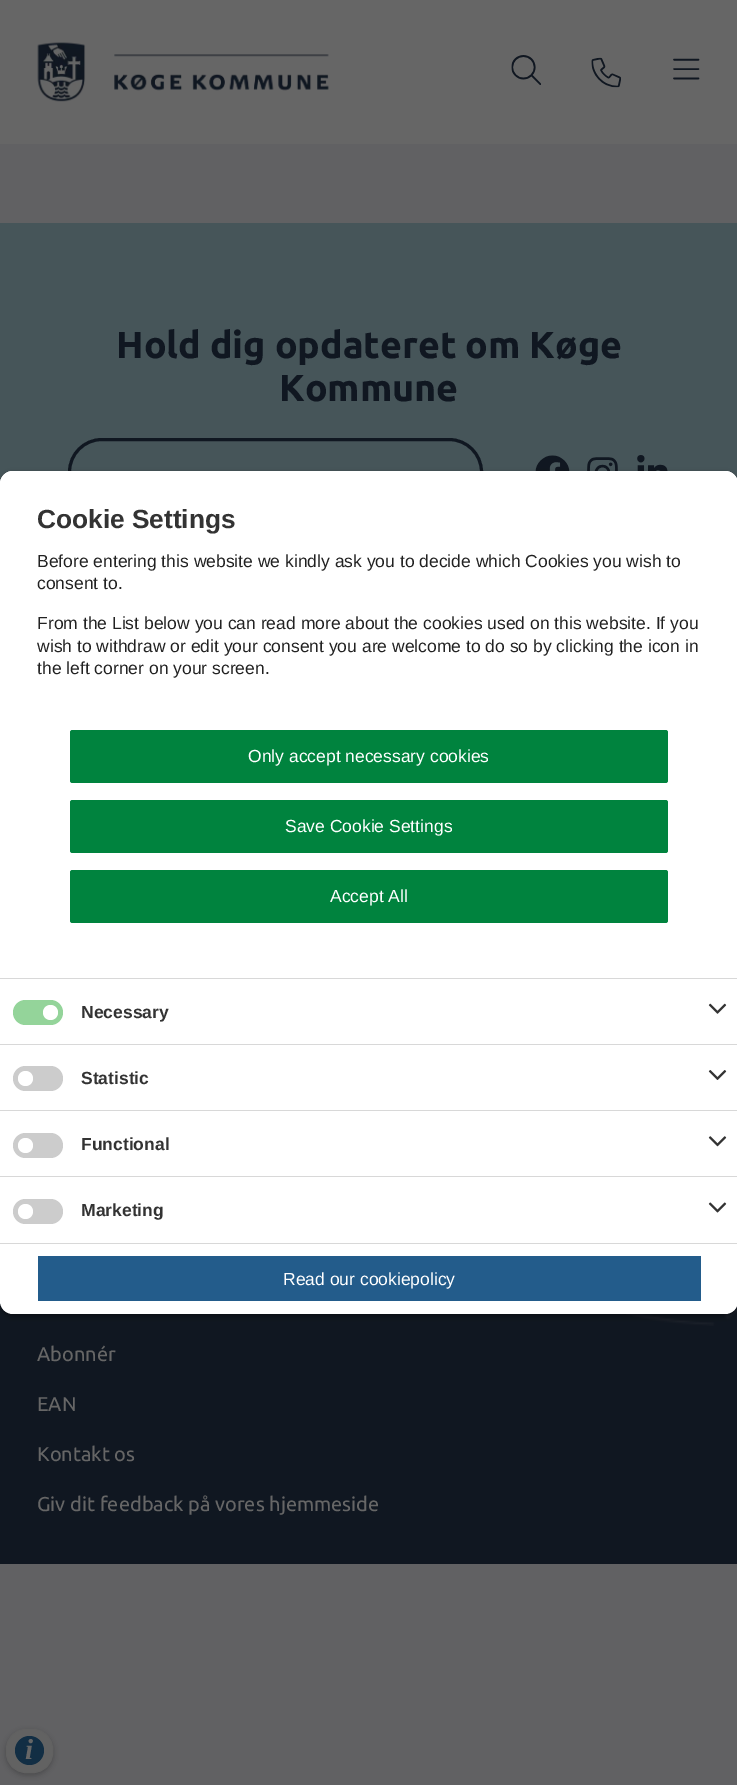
%!PS
<< /PageSize [737 1785] /PageUsesTransparency true >> setpagedevice
/alpha { dup .setfillconstantalpha .setstrokeconstantalpha } def
/roundrect { 5 dict begin { /r /h /w /y /x } { exch def } forall
  x r add y moveto x w add y 2 copy h add r arct x w add y h add x 1 index r arct
  x y h add x y r arct x y 2 copy exch w add exch r arct closepath end } def
/shadow { 12 dict begin { /a /b /q /h /w /y /x } { exch def } forall gsave /was 0 def
  9 -2 -9 { dup b mul 4 div /e exch def 1 sub .425 mul 2.718 exch exp 1 add a .99 .min exch div /now exch def
    1 1 now sub 1 was sub div sub alpha /was now def
    w h .min e 2 mul add 0 gt { x e sub y e sub w e 2 mul add h e 2 mul add
      q e add b .6 mul add w h .min 2 div e add .min 0 .max roundrect fill } if } for grestore end } def
/picture { 5 dict begin { /h /w /y /x /name } { exch def } forall
  gsave x y translate w h scale
  w h 8 [w 0 0 h 0 0] name (r) file false 3 colorimage grestore end } def
0 .pushpdf14devicefilter
0 1785 translate 1 -1 scale
4 setmiterlimit
0.38 0.38 0.388 setrgbcolor
0 0 737 1785 rectfill
0.4 setgray
0 0 737 144 rectfill
(img1.rgb) 37 42 292 60 picture
(img2.rgb) 511 55 30 30 picture
(img3.rgb) 591 57 30 31 picture
(img4.rgb) 673 58 27 22 picture
0.275 0.333 0.349 setrgbcolor
0 223 737 261 rectfill
/Ubuntu-Bold [37.5 0 0 -37.5 0 0] selectfont
0.063 0.09 0.129 setrgbcolor
116 358 moveto (Hold dig opdateret om Køge) show
279 401 moveto (Kommune) show
3 setlinewidth
69.5 439.5 412 65 32.5 roundrect stroke
(img5.rgb) 535 455 35 16 picture
(img6.rgb) 587 457 31 14 picture
(img7.rgb) 637 455 31 16 picture
0 1301 737 263 rectfill
(img8.rgb) 626 1307 111 19 picture
/Ubuntu-Regular [20 0 0 -20 0 0] selectfont
0.4 setgray
37 1361 moveto (Abonnér) show
37 1411 moveto (EAN) show
37 1461 moveto (Kontakt os) show
37 1511 moveto (Giv dit feedback på vores hjemmeside) show
0 setgray
0 474 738 842 13 3 0.46 shadow
1 setgray
0 471 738 843 13 roundrect fill
newpath 13 471 moveto 725 471 lineto 732 471 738 477 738 484 curveto 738 979 lineto 0 979 lineto 0 484 lineto 0 477 6 471 13 471 curveto closepath fill
0.847 setgray
0 978 737 1 rectfill
/LiberationSans-Bold [26.25 0 0 -26.25 0 0] selectfont
0.2 setgray
37 528 moveto (Cookie Settings) show
/LiberationSans-Regular [17.5 0 0 -17.5 0 0] selectfont
0.133 setgray
37 567 moveto (Before entering this website we kindly ask you to decide which Cookies you wish to) show
37 589 moveto (consent to.) show
37 629 moveto (From the List below you can read more about the cookies used on this website. If you) show
37 652 moveto (wish to withdraw or edit your consent you are welcome to do so by clicking the icon in) show
37 674 moveto (the left corner on your screen.) show
0 0.514 0.243 setrgbcolor
70 730 598 53 2.5 roundrect fill
1 setgray
248 762 moveto (Only accept necessary cookies) show
0 0.514 0.243 setrgbcolor
70 800 598 53 2.5 roundrect fill
1 setgray
285 832 moveto (Save Cookie Settings) show
0 0.514 0.243 setrgbcolor
70 870 598 53 2.5 roundrect fill
1 setgray
330 902 moveto (Accept All) show
0.847 setgray
0 1044 737 1 rectfill
0.58 0.831 0.604 setrgbcolor
13 1000 50 25 12.5 roundrect fill
1 setgray
newpath 50.5 1012.5 7.5 0 360 arc closepath fill
/LiberationSans-Bold [17.5 0 0 -17.5 0 0] selectfont
0.2 setgray
81 1018 moveto (Necessary) show
(img9.rgb) 708 1003 19 11 picture
0.847 setgray
0 1110 737 1 rectfill
0.8 setgray
13 1066 50 25 12.5 roundrect fill
1 setgray
newpath 25.5 1078.5 7.5 0 360 arc closepath fill
0.2 setgray
81 1084 moveto (Statistic) show
(img10.rgb) 708 1070 19 10 picture
0.847 setgray
0 1176 737 1 rectfill
0.8 setgray
13 1133 50 25 12.5 roundrect fill
1 setgray
newpath 25.5 1145.5 7.5 0 360 arc closepath fill
0.2 setgray
81 1150 moveto (Functional) show
(img11.rgb) 708 1136 19 11 picture
0.847 setgray
0 1243 737 1 rectfill
0.8 setgray
13 1199 50 25 12.5 roundrect fill
1 setgray
newpath 25.5 1211.5 7.5 0 360 arc closepath fill
0.2 setgray
81 1216 moveto (Marketing) show
(img12.rgb) 708 1202 19 11 picture
0.137 0.361 0.545 setrgbcolor
38 1256 663 45 rectfill
/LiberationSans-Regular [17.5 0 0 -17.5 0 0] selectfont
1 setgray
283 1285 moveto (Read our cookiepolicy) show
0 setgray
6 1731 47 44 20 3 0.26 shadow
0.384 setgray
6.5 1729.5 46 43 19.5 roundrect gsave fill grestore
0.38 setgray
1 setlinewidth
stroke
0.071 0.18 0.267 setrgbcolor
newpath 29.5 1750.5 14.5 0 360 arc closepath fill
/LiberationSerif-BoldItalic [29 0 0 -29 0 0] selectfont
0.4 setgray
25 1759 moveto (i) show
.poppdf14devicefilter showpage
